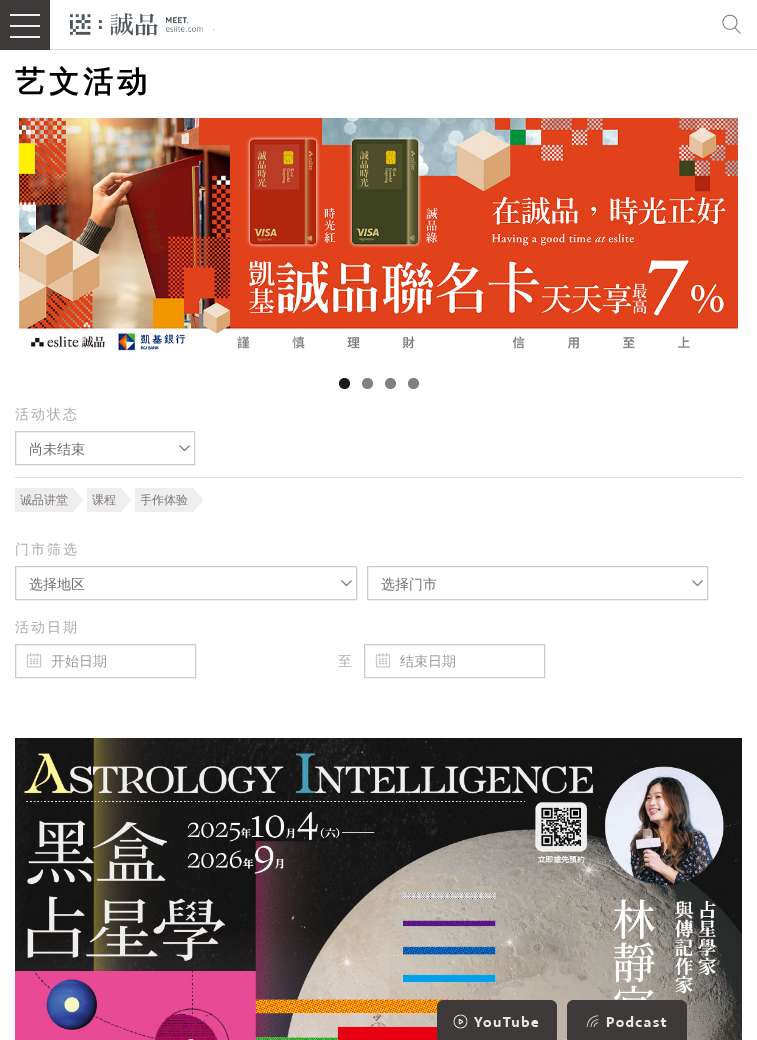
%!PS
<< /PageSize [757 1040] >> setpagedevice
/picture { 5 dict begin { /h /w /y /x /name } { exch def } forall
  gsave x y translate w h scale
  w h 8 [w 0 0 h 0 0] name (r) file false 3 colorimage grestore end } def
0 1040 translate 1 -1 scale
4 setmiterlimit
1 setgray
0 0 757 1040 rectfill
0.847 setgray
50 49 707 1 rectfill
0.243 0.227 0.224 setrgbcolor
0 0 50 50 rectfill
0.925 0.941 0.945 setrgbcolor
10 14 30 2 rectfill
10 25 30 2 rectfill
10 36 30 2 rectfill
(img1.rgb) 70 13 133 23 picture
(img2.rgb) 213 28 1 3 picture
(img3.rgb) 722 14 19 20 picture
/WenQuanYiZenHei-Bold [30 0 0 -30 0 0] selectfont
0 setgray
15 92 moveto 4 0 (艺文活动) ashow
(img4.rgb) 19 118 719 233 picture
0.102 setgray
newpath 344.5 383.5 5.5 0 360 arc closepath fill
0.502 setgray
newpath 367.5 383.5 5.5 0 360 arc closepath fill
newpath 390.5 383.5 5.5 0 360 arc closepath fill
newpath 413.5 383.5 5.5 0 360 arc closepath fill
0.867 setgray
15 477 727 1 rectfill
/WenQuanYiZenHei-Medium [14 0 0 -14 0 0] selectfont
0.667 0.663 0.667 setrgbcolor
15 419 moveto 2 0 (活动状态) ashow
0.8 setgray
15.5 431.5 179 33 rectstroke
0.443 0.439 0.443 setrgbcolor
29 454 moveto (尚未结束) show
(img5.rgb) 179 445 11 7 picture
0.933 setgray
15 488 58 24 rectfill
/WenQuanYiZenHei-Medium [12 0 0 -12 0 0] selectfont
0.494 0.463 0.447 setrgbcolor
20 504 moveto (诚品讲堂) show
0.933 setgray
newpath 73 512 moveto 73 488 lineto 83 500 lineto closepath fill
87 488 34 24 rectfill
0.494 0.463 0.447 setrgbcolor
92 504 moveto (课程) show
0.933 setgray
newpath 121 512 moveto 121 488 lineto 131 500 lineto closepath fill
135 488 58 24 rectfill
0.494 0.463 0.447 setrgbcolor
140 504 moveto (手作体验) show
0.933 setgray
newpath 193 512 moveto 193 488 lineto 203 500 lineto closepath fill
/WenQuanYiZenHei-Medium [14 0 0 -14 0 0] selectfont
0.667 0.663 0.667 setrgbcolor
15 554 moveto 2 0 (门市筛选) ashow
0.8 setgray
15.5 566.5 341 33 rectstroke
0.443 0.439 0.443 setrgbcolor
29 589 moveto (选择地区) show
(img5.rgb) 341 580 11 7 picture
0.8 setgray
367.5 566.5 340 33 rectstroke
0.443 0.439 0.443 setrgbcolor
381 589 moveto (选择门市) show
(img5.rgb) 692 580 11 7 picture
0.667 0.663 0.667 setrgbcolor
15 632 moveto 2 0 (活动日期) ashow
0.8 setgray
15.5 644.5 180 33 rectstroke
(img6.rgb) 26 653 16 15 picture
0.624 0.616 0.612 setrgbcolor
51 666 moveto (开始日期) show
0.667 0.663 0.667 setrgbcolor
338 666 moveto 2 0 (至) ashow
0.8 setgray
364.5 644.5 180 33 rectstroke
(img6.rgb) 375 653 16 15 picture
0.624 0.616 0.612 setrgbcolor
400 666 moveto (结束日期) show
(img7.rgb) 15 738 727 302 picture
(img8.rgb) 437 1000 120 40 picture
(img9.rgb) 567 1000 120 40 picture
showpage
